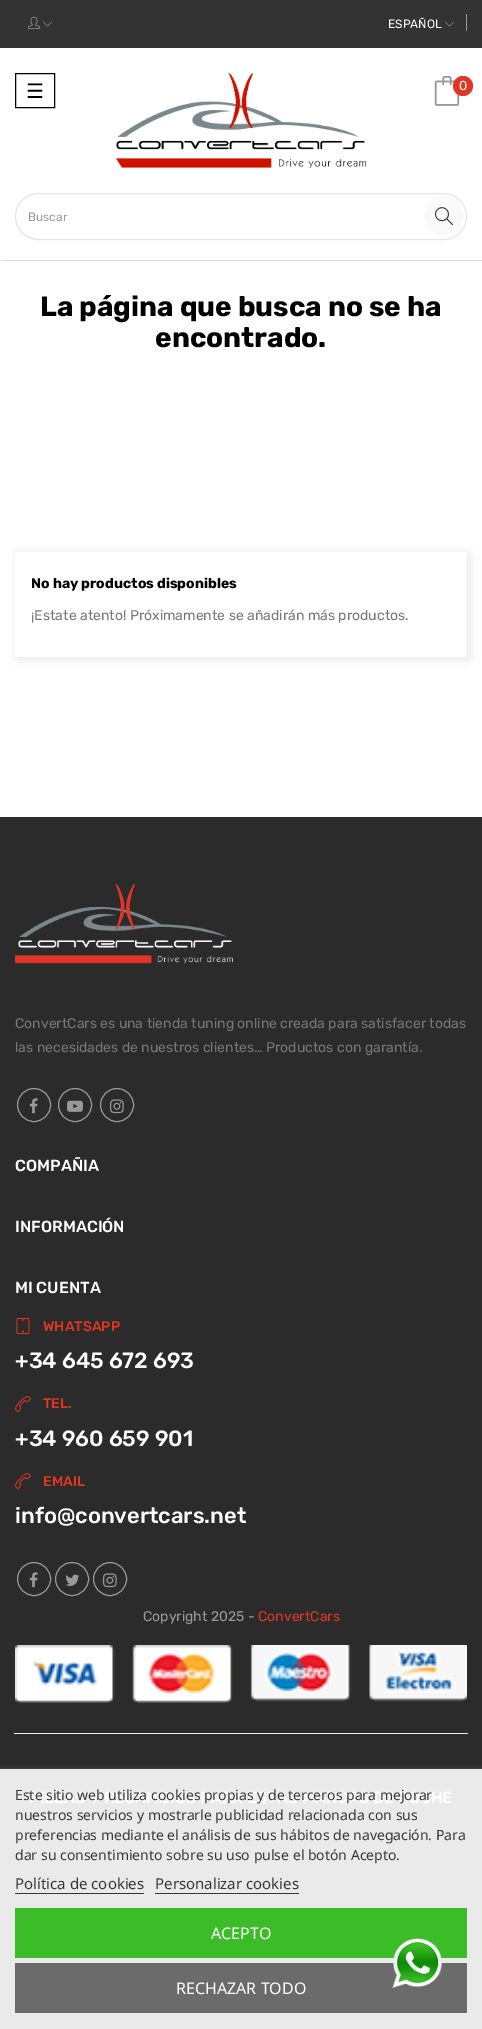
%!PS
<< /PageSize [482 2029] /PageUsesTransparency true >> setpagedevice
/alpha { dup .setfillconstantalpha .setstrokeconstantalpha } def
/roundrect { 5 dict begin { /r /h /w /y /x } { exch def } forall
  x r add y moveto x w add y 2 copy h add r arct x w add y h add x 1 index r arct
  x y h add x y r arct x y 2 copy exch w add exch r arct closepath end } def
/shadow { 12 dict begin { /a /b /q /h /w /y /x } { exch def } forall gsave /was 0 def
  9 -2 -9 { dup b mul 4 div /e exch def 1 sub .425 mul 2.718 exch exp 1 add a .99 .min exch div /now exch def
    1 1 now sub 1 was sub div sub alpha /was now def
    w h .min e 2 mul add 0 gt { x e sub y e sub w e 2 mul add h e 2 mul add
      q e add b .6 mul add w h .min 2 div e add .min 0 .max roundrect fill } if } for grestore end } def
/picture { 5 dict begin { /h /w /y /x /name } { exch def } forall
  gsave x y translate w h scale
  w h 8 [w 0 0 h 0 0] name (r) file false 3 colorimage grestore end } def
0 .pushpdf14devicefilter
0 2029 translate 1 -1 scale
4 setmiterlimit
1 setgray
0 0 482 2029 rectfill
0.2 setgray
0 0 482 48 rectfill
(img1.rgb) 28 16 12 13 picture
(img2.rgb) 43 21 9 6 picture
/Rubik-Regular [12 0 0 -12 0 0] selectfont
1 setgray
388 28 moveto (ESPAÑOL) show
0.6 setgray
466 14 1 17 rectfill
(img2.rgb) 445 21 9 6 picture
gsave
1 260 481 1 rectclip
0 setgray
1 49 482 212 0 0.5 0.15 shadow
grestore
0 setgray
15.5 73.5 39 34 rectstroke
/DejaVuSans-Regular [20 0 0 -20 0 0] selectfont
26 98 moveto (☰) show
(img3.rgb) 116 73 251 96 picture
(img4.rgb) 434 75 26 31 picture
0.882 0.212 0.141 setrgbcolor
newpath 463 86 10 0 360 arc closepath fill
/Rubik-Regular [13 0 0 -13 0 0] selectfont
1 setgray
459 90 moveto (0) show
0.898 setgray
15.5 193.5 451 46 23 roundrect stroke
/Rubik-Regular [12 0 0 -12 0 0] selectfont
0.6 setgray
28 221 moveto (Buscar) show
0.976 setgray
newpath 444 216 20 0 360 arc closepath fill
(img5.rgb) 435 207 18 19 picture
/Rubik-Bold [28 0 0 -28 0 0] selectfont
0 setgray
40 316 moveto (La página que busca no se ha) show
155 347 moveto (encontrado.) show
gsave
newpath 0 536 moveto 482 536 lineto 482 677 lineto 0 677 lineto closepath 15 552 moveto 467 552 lineto 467 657 lineto 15 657 lineto closepath eoclip newpath
17 554 452 105 0 5.5 0.1 shadow
grestore
/Rubik-Bold [14 0 0 -14 0 0] selectfont
31 588 moveto (No hay productos disponibles) show
/Rubik-Regular [14 0 0 -14 0 0] selectfont
0.467 setgray
31 620 moveto (¡Estate atento! Próximamente se añadirán más productos.) show
0.169 setgray
0 817 482 952 rectfill
0.918 setgray
0 1769 482 260 rectfill
(img6.rgb) 15 884 218 80 picture
0.467 setgray
15 1028 moveto (ConvertCars es una tienda tuning online creada para satisfacer todas) show
15 1052 moveto (las necesidades de nuestros clientes… Productos con garantía.) show
0.6 setgray
newpath 34 1105 16.5 0 360 arc closepath stroke
(img7.rgb) 29 1098 9 16 picture
newpath 75 1105 16.5 0 360 arc closepath stroke
(img8.rgb) 67 1100 16 12 picture
newpath 117 1105 16.5 0 360 arc closepath stroke
(img9.rgb) 110 1099 14 15 picture
/Rubik-Medium [16 0 0 -16 0 0] selectfont
1 setgray
15 1171 moveto (COMPAÑIA) show
15 1232 moveto (INFORMACIÓN) show
15 1293 moveto (MI CUENTA) show
(img10.rgb) 16 1318 14 16 picture
/Rubik-Medium [14 0 0 -14 0 0] selectfont
0.882 0.212 0.141 setrgbcolor
43 1331 moveto (WHATSAPP) show
/Rubik-Medium [22 0 0 -22 0 0] selectfont
1 setgray
15 1368 moveto (+34 645 672 693) show
(img11.rgb) 15 1396 16 16 picture
/Rubik-Medium [14 0 0 -14 0 0] selectfont
0.882 0.212 0.141 setrgbcolor
43 1408 moveto (TEL.) show
/Rubik-Medium [22 0 0 -22 0 0] selectfont
1 setgray
15 1446 moveto (+34 960 659 901) show
(img11.rgb) 15 1473 16 16 picture
/Rubik-Medium [14 0 0 -14 0 0] selectfont
0.882 0.212 0.141 setrgbcolor
43 1486 moveto (EMAIL) show
/Rubik-Medium [22 0 0 -22 0 0] selectfont
1 setgray
15 1523 moveto (info@convertcars.net) show
0.6 setgray
newpath 34 1579 16.5 0 360 arc closepath stroke
(img7.rgb) 29 1572 9 16 picture
newpath 72 1579 16.5 0 360 arc closepath stroke
(img12.rgb) 65 1574 15 12 picture
newpath 110 1579 16.5 0 360 arc closepath stroke
(img9.rgb) 103 1573 14 15 picture
/Rubik-Regular [14 0 0 -14 0 0] selectfont
143 1621 moveto (Copyright 2025 -) show
0.882 0.212 0.141 setrgbcolor
258 1621 moveto (ConvertCars) show
(img13.rgb) 15 1645 452 58 picture
0.933 setgray
14 1733 454 1 rectfill
gsave
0 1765 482 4 rectclip
0.439 setgray
0 1770 482 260 0 2.5 1 shadow
grestore
/Rubik-Medium [16 0 0 -16 0 0] selectfont
1 setgray
29 1803 moveto (PIEZAS Y RECAMBIOS PARA ESTAS MARCAS DE COCHE) show
/NotoSans-Regular [14 0 0 -14 0 0] selectfont
0.216 setgray
15 1800 moveto (Este sitio web utiliza cookies propias y de terceros para mejorar) show
15 1820 moveto (nuestros servicios y mostrarle publicidad relacionada con sus) show
15 1840 moveto (preferencias mediante el análisis de sus hábitos de navegación. Para) show
15 1860 moveto (dar su consentimiento sobre su uso pulse el botón Acepto.) show
/NotoSans-Regular [15 0 0 -15 0 0] selectfont
15 1889 moveto (Política de cookies) show
15 1893 129 1 rectfill
155 1889 moveto (Personalizar cookies) show
155 1893 144 1 rectfill
0.239 0.737 0.161 setrgbcolor
15 1908 452 50 rectfill
/NotoSans-Regular [16 0 0 -16 0 0] selectfont
1 setgray
211 1939 moveto (ACEPTO) show
0.42 setgray
15 1963 452 50 rectfill
1 setgray
176 1994 moveto (RECHAZAR TODO) show
(img14.rgb) 392 1938 50 50 picture
.poppdf14devicefilter showpage
